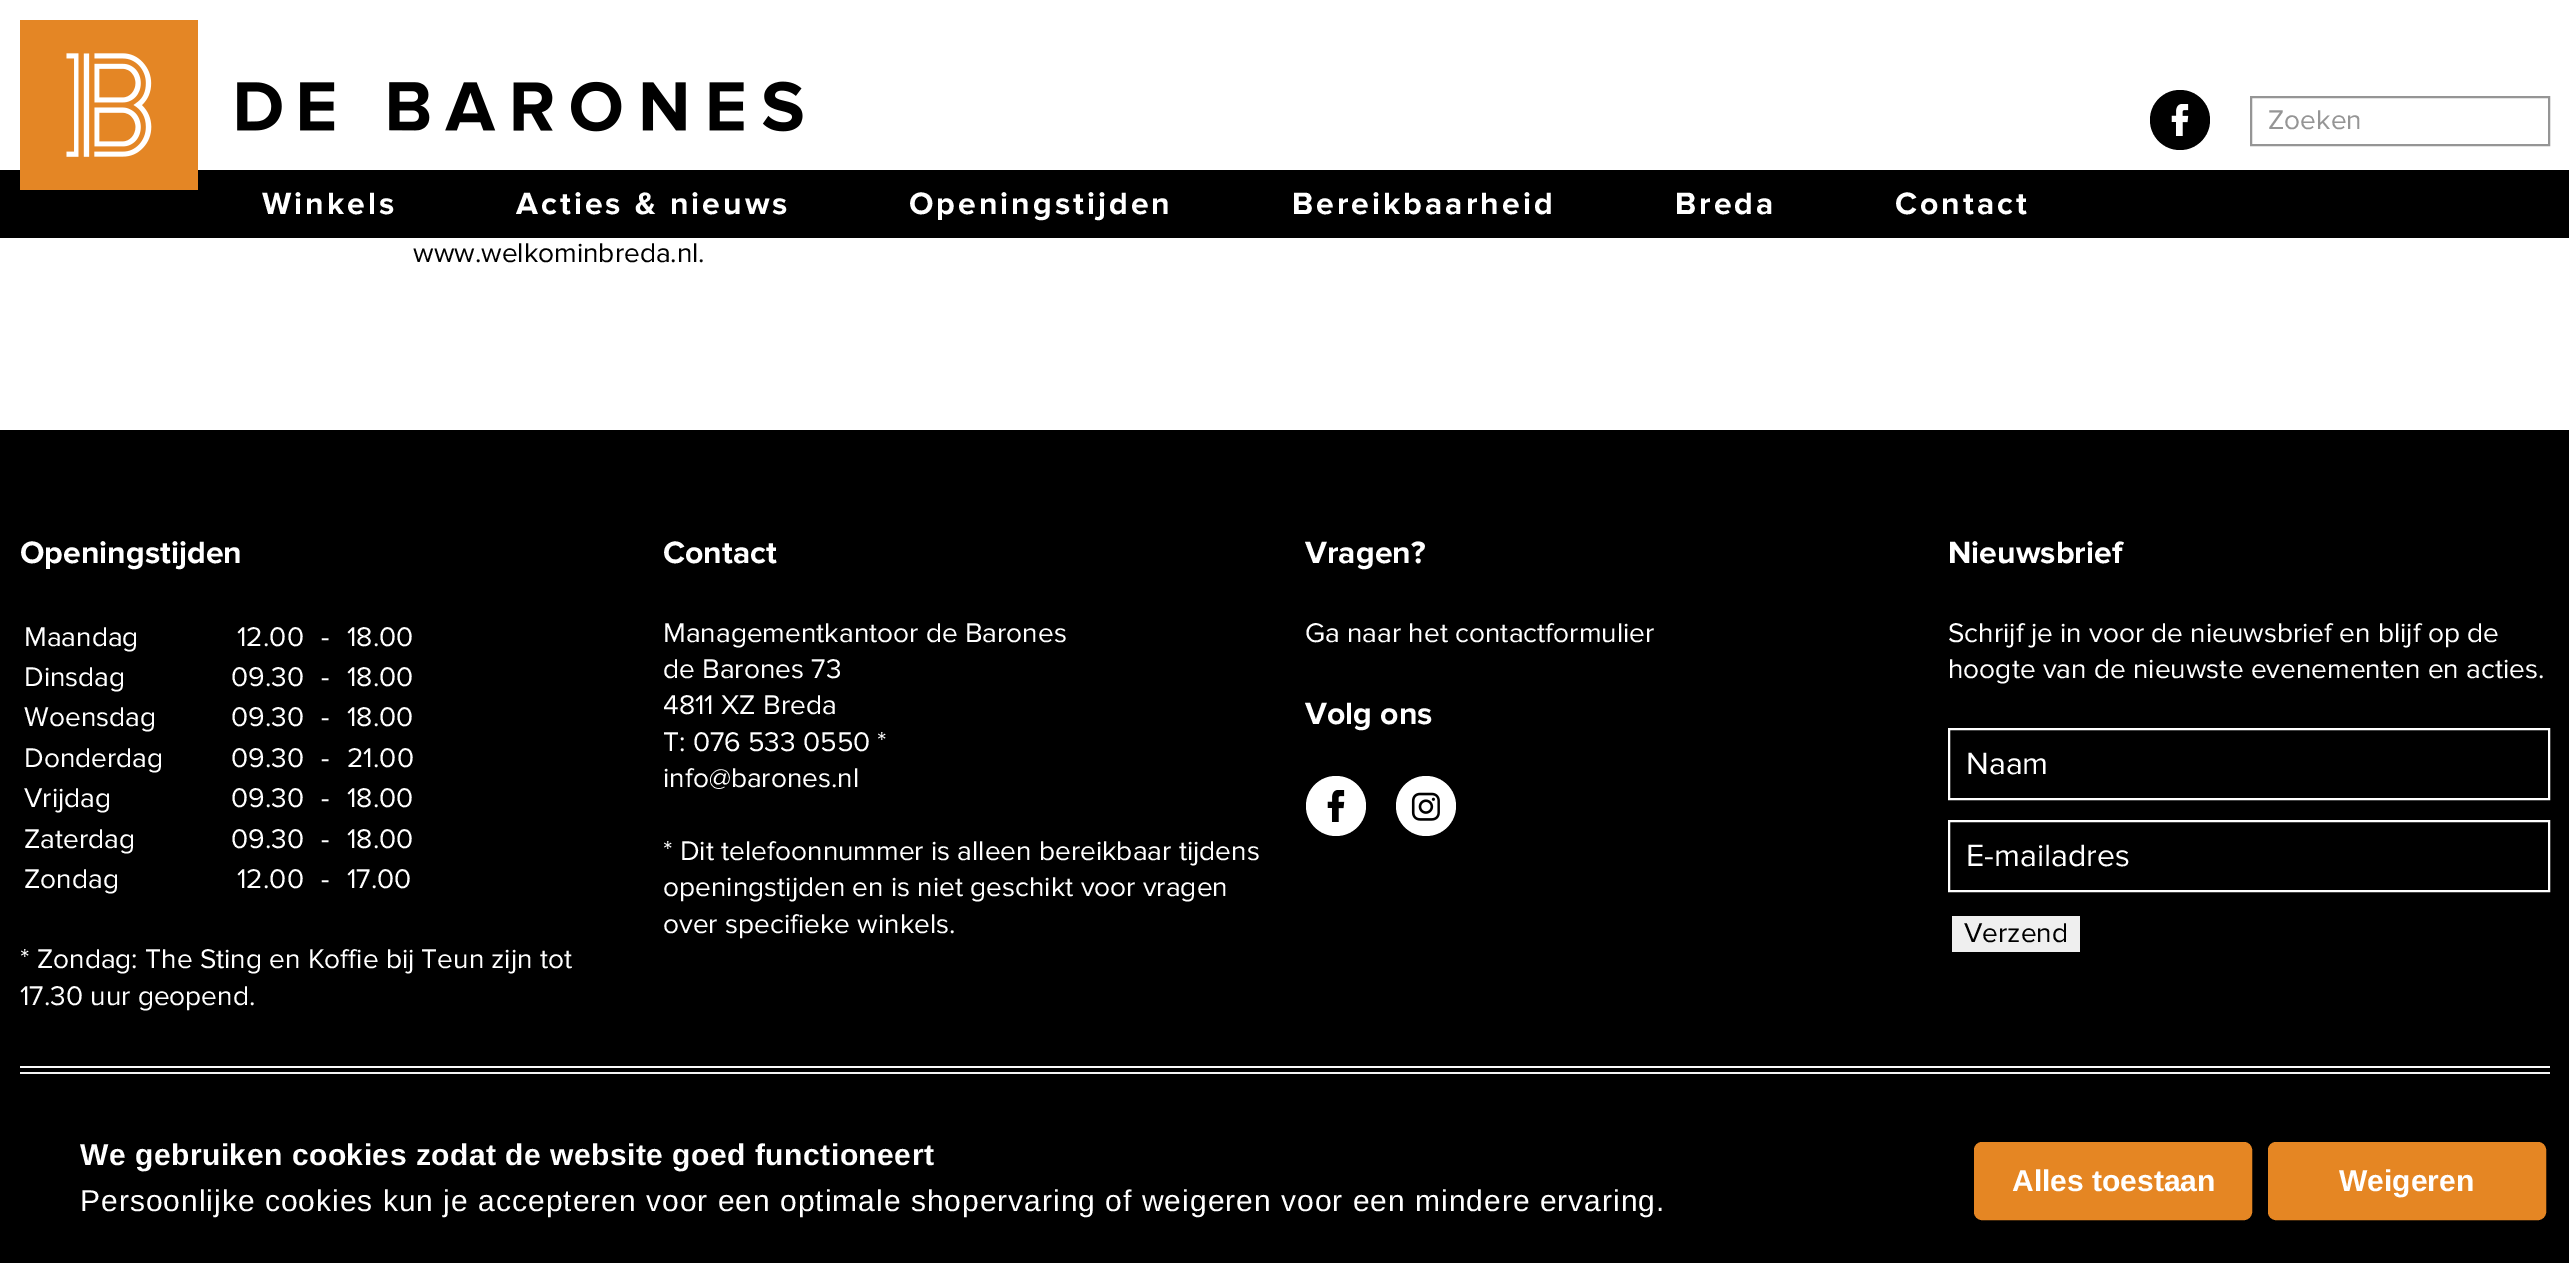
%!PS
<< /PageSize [2569 1263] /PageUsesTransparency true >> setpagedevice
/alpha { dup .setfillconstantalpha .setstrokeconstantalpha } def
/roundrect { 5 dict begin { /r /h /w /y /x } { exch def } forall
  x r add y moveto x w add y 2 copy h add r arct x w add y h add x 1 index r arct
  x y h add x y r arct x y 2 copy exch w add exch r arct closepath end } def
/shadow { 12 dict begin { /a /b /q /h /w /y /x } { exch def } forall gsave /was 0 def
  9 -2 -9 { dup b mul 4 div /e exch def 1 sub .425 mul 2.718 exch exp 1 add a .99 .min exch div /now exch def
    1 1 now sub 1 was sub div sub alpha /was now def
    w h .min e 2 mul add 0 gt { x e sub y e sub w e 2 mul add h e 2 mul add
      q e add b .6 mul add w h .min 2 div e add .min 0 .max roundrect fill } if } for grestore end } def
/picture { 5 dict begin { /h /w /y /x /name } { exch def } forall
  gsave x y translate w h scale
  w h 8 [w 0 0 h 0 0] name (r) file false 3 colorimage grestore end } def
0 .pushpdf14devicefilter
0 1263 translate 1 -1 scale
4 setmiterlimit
1 setgray
0 0 2569 1263 rectfill
0 setgray
0 170 2569 68 rectfill
(img1.rgb) 20 20 783 170 picture
newpath 2180 120 30 0 360 arc closepath fill
(img2.rgb) 2171 104 18 32 picture
0.584 setgray
2 setlinewidth
2251 97 298 48 rectstroke
/ProximaNova-Regular [28 0 0 -28 0 0] selectfont
2268 129 moveto (Zoeken) show
/ProximaNova-Bold [32 0 0 -32 0 0] selectfont
1 setgray
262 214 moveto 3 0 (Winkels) ashow
516 214 moveto 3 0 (Acties & nieuws) ashow
909 214 moveto 3 0 (Openingstijden) ashow
1292 214 moveto 3 0 (Bereikbaarheid) ashow
1675 214 moveto 3 0 (Breda) ashow
1895 214 moveto 3 0 (Contact) ashow
/ProximaNova-Regular [28 0 0 -28 0 0] selectfont
0 setgray
413 262 moveto (www.welkominbreda.nl) show
0.039 setgray
698 262 moveto (.) show
0 setgray
0 430 2569 666 rectfill
/ProximaNova-Bold [32 0 0 -32 0 0] selectfont
1 setgray
20 563 moveto (Openingstijden) show
/ProximaNova-Regular [28 0 0 -28 0 0] selectfont
24 646 moveto (Maandag) show
237 646 moveto (12.00) show
321 646 moveto (-) show
347 646 moveto (18.00) show
24 686 moveto (Dinsdag) show
231 686 moveto (09.30) show
321 686 moveto (-) show
347 686 moveto (18.00) show
24 726 moveto (Woensdag) show
231 726 moveto (09.30) show
321 726 moveto (-) show
347 726 moveto (18.00) show
24 767 moveto (Donderdag) show
231 767 moveto (09.30) show
321 767 moveto (-) show
347 767 moveto (21.00) show
24 807 moveto (Vrijdag) show
231 807 moveto (09.30) show
321 807 moveto (-) show
347 807 moveto (18.00) show
24 848 moveto (Zaterdag) show
231 848 moveto (09.30) show
321 848 moveto (-) show
347 848 moveto (18.00) show
24 888 moveto (Zondag) show
237 888 moveto (12.00) show
321 888 moveto (-) show
347 888 moveto (17.00) show
20 968 moveto (* Zondag: The Sting en Koffie bij Teun zijn tot) show
20 1005 moveto (17.30 uur geopend.) show
/ProximaNova-Bold [32 0 0 -32 0 0] selectfont
663 563 moveto (Contact) show
/ProximaNova-Regular [28 0 0 -28 0 0] selectfont
663 642 moveto (Managementkantoor de Barones) show
663 678 moveto (de Barones 73) show
663 714 moveto (4811 XZ Breda) show
663 751 moveto (T: 076 533 0550 *) show
663 787 moveto (info@barones.nl) show
663 860 moveto (* Dit telefoonnummer is alleen bereikbaar tijdens) show
663 896 moveto (openingstijden en is niet geschikt voor vragen) show
663 933 moveto (over specifieke winkels.) show
/ProximaNova-Bold [32 0 0 -32 0 0] selectfont
1305 563 moveto (Vragen?) show
/ProximaNova-Regular [28 0 0 -28 0 0] selectfont
1305 642 moveto (Ga naar het contactformulier) show
/ProximaNova-Bold [32 0 0 -32 0 0] selectfont
1305 724 moveto (Volg ons) show
newpath 1336 806 30 0 360 arc closepath fill
(img3.rgb) 1327 790 18 32 picture
newpath 1426 806 30 0 360 arc closepath fill
(img4.rgb) 1411 792 29 29 picture
1948 563 moveto (Nieuwsbrief) show
/ProximaNova-Regular [28 0 0 -28 0 0] selectfont
1948 642 moveto (Schrijf je in voor de nieuwsbrief en blijf op de) show
1948 678 moveto (hoogte van de nieuwste evenementen en acties.) show
1949 729 600 70 rectstroke
/ProximaNova-Regular [32 0 0 -32 0 0] selectfont
1966 774 moveto (Naam) show
1949 821 600 70 rectstroke
1966 866 moveto (E-mailadres) show
0.937 setgray
1952 916 128 36 rectfill
/ProximaNova-Regular [28 0 0 -28 0 0] selectfont
0 setgray
1964 942 moveto (Verzend) show
1 setgray
20 1066 2530 2 rectfill
20 1072 2530 2 rectfill
0 setgray
0 1156 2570 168 0 70 0.3 shadow
0 1096 2569 167 rectfill
/LiberationSans-Bold [30 0 0 -30 0 0] selectfont
1 setgray
80 1165 moveto 0.5 0 (We gebruiken cookies zodat de website goed functioneert) ashow
/LiberationSans-Regular [30 0 0 -30 0 0] selectfont
80 1211 moveto 1 0 (Persoonlijke cookies kun je accepteren voor een optimale shopervaring of weigeren voor een mindere ervaring.) ashow
0.898 0.525 0.137 setrgbcolor
1976 1144 274 74 6 roundrect gsave fill grestore
4 setlinewidth
stroke
/LiberationSans-Bold [30 0 0 -30 0 0] selectfont
1 setgray
2012 1191 moveto (Alles toestaan) show
0.898 0.525 0.137 setrgbcolor
2270 1144 274 74 6 roundrect gsave fill grestore
stroke
1 setgray
2339 1191 moveto (Weigeren) show
.poppdf14devicefilter showpage
